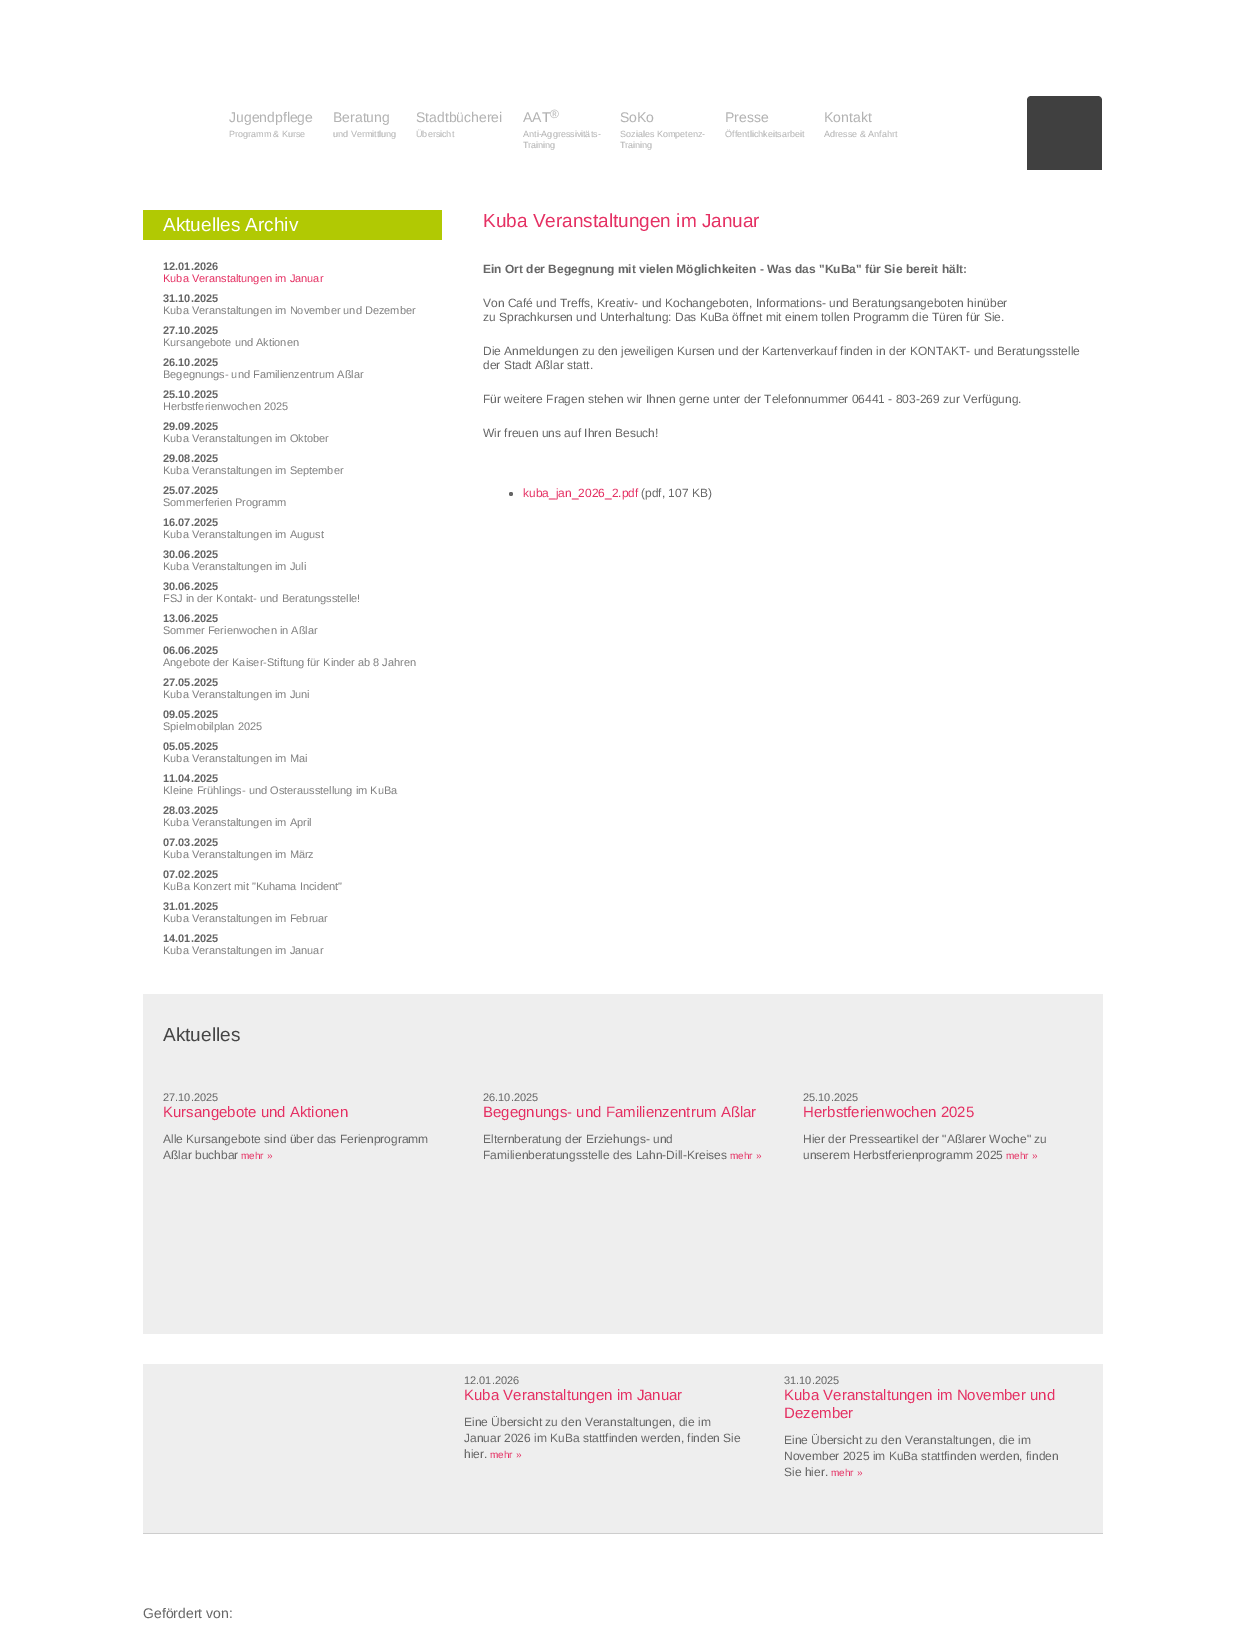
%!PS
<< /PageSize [1245 1632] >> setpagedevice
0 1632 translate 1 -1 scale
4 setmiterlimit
1 setgray
0 0 1245 1632 rectfill
/LiberationSans-Regular [14 0 0 -14 0 0] selectfont
0.698 setgray
229 122 moveto (Jugendpflege) show
/LiberationSans-Regular [9 0 0 -9 0 0] selectfont
229 137 moveto (Programm & Kurse) show
/LiberationSans-Regular [14 0 0 -14 0 0] selectfont
333 122 moveto (Beratung) show
/LiberationSans-Regular [9 0 0 -9 0 0] selectfont
333 137 moveto (und Vermittlung) show
/LiberationSans-Regular [14 0 0 -14 0 0] selectfont
416 122 moveto (Stadtbücherei) show
/LiberationSans-Regular [9 0 0 -9 0 0] selectfont
416 137 moveto (Übersicht) show
/LiberationSans-Regular [14 0 0 -14 0 0] selectfont
523 122 moveto (AAT) show
/LiberationSans-Regular [12 0 0 -12 0 0] selectfont
550 118 moveto (®) show
/LiberationSans-Regular [9 0 0 -9 0 0] selectfont
523 137 moveto (Anti-Aggressivitäts-) show
523 148 moveto (Training) show
/LiberationSans-Regular [14 0 0 -14 0 0] selectfont
620 122 moveto (SoKo) show
/LiberationSans-Regular [9 0 0 -9 0 0] selectfont
620 137 moveto (Soziales Kompetenz-) show
620 148 moveto (Training) show
/LiberationSans-Regular [14 0 0 -14 0 0] selectfont
725 122 moveto (Presse) show
/LiberationSans-Regular [9 0 0 -9 0 0] selectfont
725 137 moveto (Öffentlichkeitsarbeit) show
/LiberationSans-Regular [14 0 0 -14 0 0] selectfont
824 122 moveto (Kontakt) show
/LiberationSans-Regular [9 0 0 -9 0 0] selectfont
824 137 moveto (Adresse & Anfahrt) show
0.251 setgray
newpath 1031 96 moveto 1098 96 lineto 1100 96 1102 98 1102 100 curveto 1102 170 lineto 1027 170 lineto 1027 100 lineto 1027 98 1029 96 1031 96 curveto closepath fill
0.694 0.788 0.012 setrgbcolor
143 210 299 30 rectfill
/LiberationSans-Regular [19 0 0 -19 0 0] selectfont
1 setgray
163 231 moveto (Aktuelles Archiv) show
/LiberationSans-Bold [11 0 0 -11 0 0] selectfont
0.4 setgray
163 270 moveto (12.01.2026) show
/LiberationSans-Regular [11 0 0 -11 0 0] selectfont
0.898 0.188 0.388 setrgbcolor
163 282 moveto (Kuba Veranstaltungen im Januar) show
/LiberationSans-Bold [11 0 0 -11 0 0] selectfont
0.4 setgray
163 302 moveto (31.10.2025) show
/LiberationSans-Regular [11 0 0 -11 0 0] selectfont
0.502 setgray
163 314 moveto (Kuba Veranstaltungen im November und Dezember) show
/LiberationSans-Bold [11 0 0 -11 0 0] selectfont
0.4 setgray
163 334 moveto (27.10.2025) show
/LiberationSans-Regular [11 0 0 -11 0 0] selectfont
0.502 setgray
163 346 moveto (Kursangebote und Aktionen) show
/LiberationSans-Bold [11 0 0 -11 0 0] selectfont
0.4 setgray
163 366 moveto (26.10.2025) show
/LiberationSans-Regular [11 0 0 -11 0 0] selectfont
0.502 setgray
163 378 moveto (Begegnungs- und Familienzentrum Aßlar) show
/LiberationSans-Bold [11 0 0 -11 0 0] selectfont
0.4 setgray
163 398 moveto (25.10.2025) show
/LiberationSans-Regular [11 0 0 -11 0 0] selectfont
0.502 setgray
163 410 moveto (Herbstferienwochen 2025) show
/LiberationSans-Bold [11 0 0 -11 0 0] selectfont
0.4 setgray
163 430 moveto (29.09.2025) show
/LiberationSans-Regular [11 0 0 -11 0 0] selectfont
0.502 setgray
163 442 moveto (Kuba Veranstaltungen im Oktober) show
/LiberationSans-Bold [11 0 0 -11 0 0] selectfont
0.4 setgray
163 462 moveto (29.08.2025) show
/LiberationSans-Regular [11 0 0 -11 0 0] selectfont
0.502 setgray
163 474 moveto (Kuba Veranstaltungen im September) show
/LiberationSans-Bold [11 0 0 -11 0 0] selectfont
0.4 setgray
163 494 moveto (25.07.2025) show
/LiberationSans-Regular [11 0 0 -11 0 0] selectfont
0.502 setgray
163 506 moveto (Sommerferien Programm) show
/LiberationSans-Bold [11 0 0 -11 0 0] selectfont
0.4 setgray
163 526 moveto (16.07.2025) show
/LiberationSans-Regular [11 0 0 -11 0 0] selectfont
0.502 setgray
163 538 moveto (Kuba Veranstaltungen im August) show
/LiberationSans-Bold [11 0 0 -11 0 0] selectfont
0.4 setgray
163 558 moveto (30.06.2025) show
/LiberationSans-Regular [11 0 0 -11 0 0] selectfont
0.502 setgray
163 570 moveto (Kuba Veranstaltungen im Juli) show
/LiberationSans-Bold [11 0 0 -11 0 0] selectfont
0.4 setgray
163 590 moveto (30.06.2025) show
/LiberationSans-Regular [11 0 0 -11 0 0] selectfont
0.502 setgray
163 602 moveto (FSJ in der Kontakt- und Beratungsstelle!) show
/LiberationSans-Bold [11 0 0 -11 0 0] selectfont
0.4 setgray
163 622 moveto (13.06.2025) show
/LiberationSans-Regular [11 0 0 -11 0 0] selectfont
0.502 setgray
163 634 moveto (Sommer Ferienwochen in Aßlar) show
/LiberationSans-Bold [11 0 0 -11 0 0] selectfont
0.4 setgray
163 654 moveto (06.06.2025) show
/LiberationSans-Regular [11 0 0 -11 0 0] selectfont
0.502 setgray
163 666 moveto (Angebote der Kaiser-Stiftung für Kinder ab 8 Jahren) show
/LiberationSans-Bold [11 0 0 -11 0 0] selectfont
0.4 setgray
163 686 moveto (27.05.2025) show
/LiberationSans-Regular [11 0 0 -11 0 0] selectfont
0.502 setgray
163 698 moveto (Kuba Veranstaltungen im Juni) show
/LiberationSans-Bold [11 0 0 -11 0 0] selectfont
0.4 setgray
163 718 moveto (09.05.2025) show
/LiberationSans-Regular [11 0 0 -11 0 0] selectfont
0.502 setgray
163 730 moveto (Spielmobilplan 2025) show
/LiberationSans-Bold [11 0 0 -11 0 0] selectfont
0.4 setgray
163 750 moveto (05.05.2025) show
/LiberationSans-Regular [11 0 0 -11 0 0] selectfont
0.502 setgray
163 762 moveto (Kuba Veranstaltungen im Mai) show
/LiberationSans-Bold [11 0 0 -11 0 0] selectfont
0.4 setgray
163 782 moveto (11.04.2025) show
/LiberationSans-Regular [11 0 0 -11 0 0] selectfont
0.502 setgray
163 794 moveto (Kleine Frühlings- und Osterausstellung im KuBa) show
/LiberationSans-Bold [11 0 0 -11 0 0] selectfont
0.4 setgray
163 814 moveto (28.03.2025) show
/LiberationSans-Regular [11 0 0 -11 0 0] selectfont
0.502 setgray
163 826 moveto (Kuba Veranstaltungen im April) show
/LiberationSans-Bold [11 0 0 -11 0 0] selectfont
0.4 setgray
163 846 moveto (07.03.2025) show
/LiberationSans-Regular [11 0 0 -11 0 0] selectfont
0.502 setgray
163 858 moveto (Kuba Veranstaltungen im März) show
/LiberationSans-Bold [11 0 0 -11 0 0] selectfont
0.4 setgray
163 878 moveto (07.02.2025) show
/LiberationSans-Regular [11 0 0 -11 0 0] selectfont
0.502 setgray
163 890 moveto (KuBa Konzert mit "Kuhama Incident") show
/LiberationSans-Bold [11 0 0 -11 0 0] selectfont
0.4 setgray
163 910 moveto (31.01.2025) show
/LiberationSans-Regular [11 0 0 -11 0 0] selectfont
0.502 setgray
163 922 moveto (Kuba Veranstaltungen im Februar) show
/LiberationSans-Bold [11 0 0 -11 0 0] selectfont
0.4 setgray
163 942 moveto (14.01.2025) show
/LiberationSans-Regular [11 0 0 -11 0 0] selectfont
0.502 setgray
163 954 moveto (Kuba Veranstaltungen im Januar) show
/LiberationSans-Regular [19 0 0 -19 0 0] selectfont
0.898 0.188 0.388 setrgbcolor
483 227 moveto (Kuba Veranstaltungen im Januar) show
/LiberationSans-Bold [12 0 0 -12 0 0] selectfont
0.4 setgray
483 273 moveto (Ein Ort der Begegnung mit vielen Möglichkeiten - Was das "KuBa" für Sie bereit hält:) show
/LiberationSans-Regular [12 0 0 -12 0 0] selectfont
483 307 moveto (Von Café und Treffs, Kreativ- und Kochangeboten, Informations- und Beratungsangeboten hinüber) show
483 321 moveto (zu Sprachkursen und Unterhaltung: Das KuBa öffnet mit einem tollen Programm die Türen für Sie.) show
483 355 moveto (Die Anmeldungen zu den jeweiligen Kursen und der Kartenverkauf finden in der KONTAKT- und Beratungsstelle) show
483 369 moveto (der Stadt Aßlar statt.) show
483 403 moveto (Für weitere Fragen stehen wir Ihnen gerne unter der Telefonnummer 06441 - 803-269 zur Verfügung.) show
483 437 moveto (Wir freuen uns auf Ihren Besuch!) show
newpath 511 494 2 0 360 arc closepath fill
0.898 0.188 0.388 setrgbcolor
523 497 moveto (kuba_jan_2026_2.pdf) show
0.4 setgray
641 497 moveto (\(pdf, 107 KB\)) show
0.933 setgray
143 994 960 340 rectfill
/LiberationSans-Regular [19 0 0 -19 0 0] selectfont
0.271 setgray
163 1041 moveto (Aktuelles) show
/LiberationSans-Regular [11 0 0 -11 0 0] selectfont
0.4 setgray
163 1101 moveto (27.10.2025) show
/LiberationSans-Regular [15 0 0 -15 0 0] selectfont
0.898 0.188 0.388 setrgbcolor
163 1117 moveto (Kursangebote und Aktionen) show
/LiberationSans-Regular [12 0 0 -12 0 0] selectfont
0.4 setgray
163 1143 moveto (Alle Kursangebote sind über das Ferienprogramm) show
163 1159 moveto (Aßlar buchbar) show
/LiberationSans-Regular [10 0 0 -10 0 0] selectfont
0.898 0.188 0.388 setrgbcolor
241 1159 moveto (mehr ») show
/LiberationSans-Regular [11 0 0 -11 0 0] selectfont
0.4 setgray
483 1101 moveto (26.10.2025) show
/LiberationSans-Regular [15 0 0 -15 0 0] selectfont
0.898 0.188 0.388 setrgbcolor
483 1117 moveto (Begegnungs- und Familienzentrum Aßlar) show
/LiberationSans-Regular [12 0 0 -12 0 0] selectfont
0.4 setgray
483 1143 moveto (Elternberatung der Erziehungs- und) show
483 1159 moveto (Familienberatungsstelle des Lahn-Dill-Kreises) show
/LiberationSans-Regular [10 0 0 -10 0 0] selectfont
0.898 0.188 0.388 setrgbcolor
730 1159 moveto (mehr ») show
/LiberationSans-Regular [11 0 0 -11 0 0] selectfont
0.4 setgray
803 1101 moveto (25.10.2025) show
/LiberationSans-Regular [15 0 0 -15 0 0] selectfont
0.898 0.188 0.388 setrgbcolor
803 1117 moveto (Herbstferienwochen 2025) show
/LiberationSans-Regular [12 0 0 -12 0 0] selectfont
0.4 setgray
803 1143 moveto (Hier der Presseartikel der "Aßlarer Woche" zu) show
803 1159 moveto (unserem Herbstferienprogramm 2025) show
/LiberationSans-Regular [10 0 0 -10 0 0] selectfont
0.898 0.188 0.388 setrgbcolor
1006 1159 moveto (mehr ») show
0.933 setgray
143 1364 960 169 rectfill
0.804 setgray
143 1533 960 1 rectfill
/LiberationSans-Regular [11 0 0 -11 0 0] selectfont
0.4 setgray
464 1384 moveto (12.01.2026) show
/LiberationSans-Regular [15 0 0 -15 0 0] selectfont
0.898 0.188 0.388 setrgbcolor
464 1400 moveto (Kuba Veranstaltungen im Januar) show
/LiberationSans-Regular [12 0 0 -12 0 0] selectfont
0.4 setgray
464 1426 moveto (Eine Übersicht zu den Veranstaltungen, die im) show
464 1442 moveto (Januar 2026 im KuBa stattfinden werden, finden Sie) show
464 1458 moveto (hier.) show
/LiberationSans-Regular [10 0 0 -10 0 0] selectfont
0.898 0.188 0.388 setrgbcolor
490 1458 moveto (mehr ») show
/LiberationSans-Regular [11 0 0 -11 0 0] selectfont
0.4 setgray
784 1384 moveto (31.10.2025) show
/LiberationSans-Regular [15 0 0 -15 0 0] selectfont
0.898 0.188 0.388 setrgbcolor
784 1400 moveto (Kuba Veranstaltungen im November und) show
784 1418 moveto (Dezember) show
/LiberationSans-Regular [12 0 0 -12 0 0] selectfont
0.4 setgray
784 1444 moveto (Eine Übersicht zu den Veranstaltungen, die im) show
784 1460 moveto (November 2025 im KuBa stattfinden werden, finden) show
784 1476 moveto (Sie hier.) show
/LiberationSans-Regular [10 0 0 -10 0 0] selectfont
0.898 0.188 0.388 setrgbcolor
831 1476 moveto (mehr ») show
/LiberationSans-Regular [14 0 0 -14 0 0] selectfont
0.4 setgray
143 1618 moveto (Gefördert von:) show
showpage
